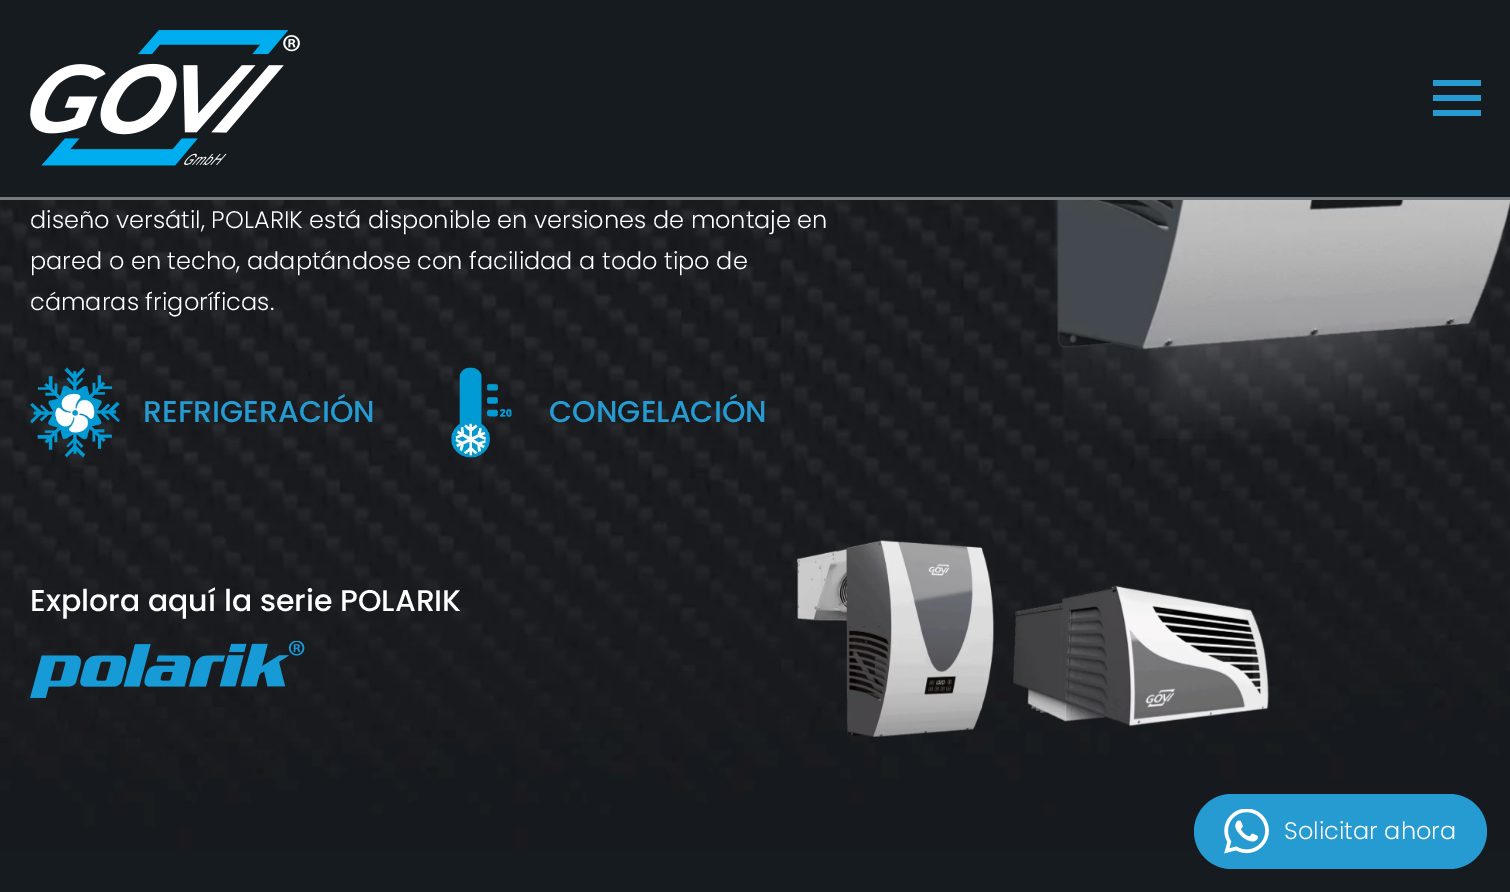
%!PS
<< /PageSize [1510 892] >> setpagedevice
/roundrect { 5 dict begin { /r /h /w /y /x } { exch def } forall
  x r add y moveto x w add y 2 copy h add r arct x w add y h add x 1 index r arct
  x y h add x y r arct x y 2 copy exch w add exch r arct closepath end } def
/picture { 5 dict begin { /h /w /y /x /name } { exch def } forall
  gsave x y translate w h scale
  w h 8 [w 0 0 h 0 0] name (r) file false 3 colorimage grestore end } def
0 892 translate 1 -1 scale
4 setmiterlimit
0.082 0.106 0.118 setrgbcolor
0 0 1510 892 rectfill
(img1.rgb) 30 30 270 136 picture
0.145 0.608 0.824 setrgbcolor
1433 95 48 6 rectfill
1433 80 48 6 rectfill
1433 110 48 6 rectfill
0.467 0.482 0.49 setrgbcolor
0 197 1510 3 rectfill
(img2.rgb) 0 200 1510 650 picture
/Poppins-Light [24 0 0 -24 0 0] selectfont
1 setgray
30 228 moveto (diseño versátil, POLARIK está disponible en versiones de montaje en) show
30 269 moveto (pared o en techo, adaptándose con facilidad a todo tipo de) show
30 310 moveto (cámaras frigoríficas.) show
(img3.rgb) 30 367 90 91 picture
/Poppins-Medium [30 0 0 -30 0 0] selectfont
0.145 0.608 0.824 setrgbcolor
143 422 moveto (REFRIGERACIÓN) show
(img4.rgb) 451 367 61 91 picture
549 422 moveto (CONGELACIÓN) show
(img5.rgb) 1054 200 456 239 picture
1 setgray
30 611 moveto (Explora aquí la serie POLARIK) show
(img6.rgb) 30 641 275 57 picture
(img7.rgb) 797 540 472 197 picture
0.145 0.608 0.824 setrgbcolor
1194 794 293 75 37.5 roundrect fill
(img8.rgb) 1224 809 45 45 picture
/Poppins-Light [24 0 0 -24 0 0] selectfont
1 setgray
1284 839 moveto (Solicitar ahora) show
showpage
